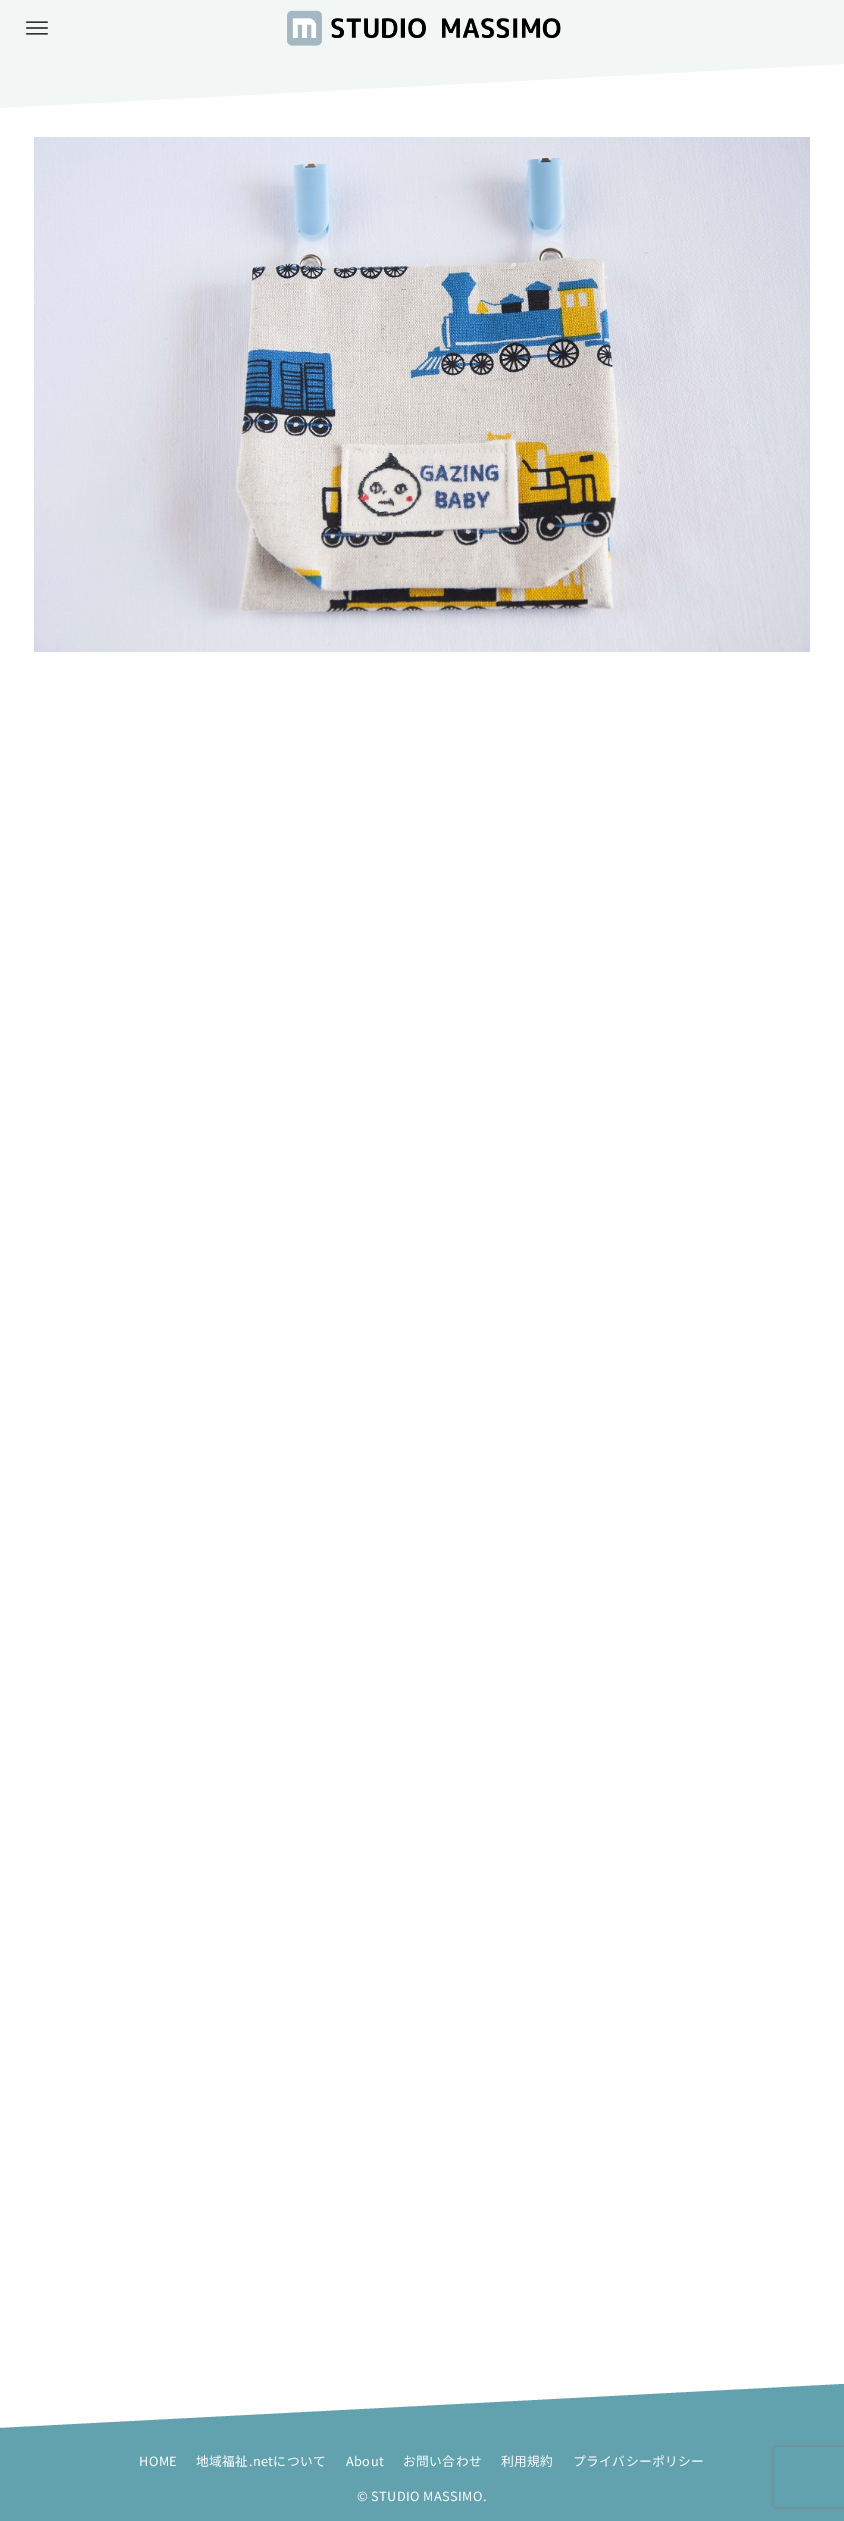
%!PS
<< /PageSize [844 2521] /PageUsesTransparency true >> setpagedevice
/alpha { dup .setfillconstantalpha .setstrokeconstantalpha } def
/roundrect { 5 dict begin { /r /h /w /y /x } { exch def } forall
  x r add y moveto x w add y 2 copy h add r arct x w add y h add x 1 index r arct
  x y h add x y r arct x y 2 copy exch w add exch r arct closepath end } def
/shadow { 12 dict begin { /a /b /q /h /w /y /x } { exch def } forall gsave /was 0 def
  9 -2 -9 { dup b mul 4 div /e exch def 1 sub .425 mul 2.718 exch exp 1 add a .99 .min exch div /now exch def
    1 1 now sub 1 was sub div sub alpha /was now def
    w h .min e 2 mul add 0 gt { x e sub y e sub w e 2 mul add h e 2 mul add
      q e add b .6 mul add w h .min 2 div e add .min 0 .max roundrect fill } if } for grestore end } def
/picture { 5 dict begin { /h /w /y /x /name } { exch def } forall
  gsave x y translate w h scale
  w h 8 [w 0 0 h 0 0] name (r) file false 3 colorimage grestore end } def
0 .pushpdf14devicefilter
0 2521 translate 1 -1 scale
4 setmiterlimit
1 setgray
0 0 844 2521 rectfill
0.949 0.969 0.965 setrgbcolor
newpath 0 -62 moveto 844 -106 lineto 844 64 lineto 0 108 lineto closepath fill
(img1.rgb) 26 21 22 14 picture
(img2.rgb) 287 10 274 36 picture
(img3.rgb) 34 137 776 515 picture
0.384 0.635 0.686 setrgbcolor
0 2464 844 57 rectfill
newpath 0 2428 moveto 844 2384 lineto 844 2464 lineto 0 2508 lineto closepath fill
/NotoSansJP-Regular [12.75 0 0 -12.75 0 0] selectfont
1 setgray
139 2466 moveto 0.4 0 (HOME) ashow
196 2466 moveto 0.4 0 (地域福祉.netについて) ashow
346 2466 moveto 0.4 0 (About) ashow
403 2466 moveto 0.4 0 (お問い合わせ) ashow
501 2466 moveto 0.4 0 (利用規約) ashow
573 2466 moveto 0.4 0 (プライバシーポリシー) ashow
357 2501 moveto 0.4 0 (© STUDIO MASSIMO.) ashow
gsave
newpath 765 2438 moveto 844 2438 lineto 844 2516 lineto 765 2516 lineto closepath 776 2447 moveto 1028 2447 lineto 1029 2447 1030 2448 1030 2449 curveto 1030 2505 lineto 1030 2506 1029 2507 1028 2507 curveto 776 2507 lineto 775 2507 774 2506 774 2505 curveto 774 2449 lineto 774 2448 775 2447 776 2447 curveto closepath eoclip newpath
0.502 setgray
774 2447 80 60 2 2.5 1 shadow
grestore
.poppdf14devicefilter showpage
